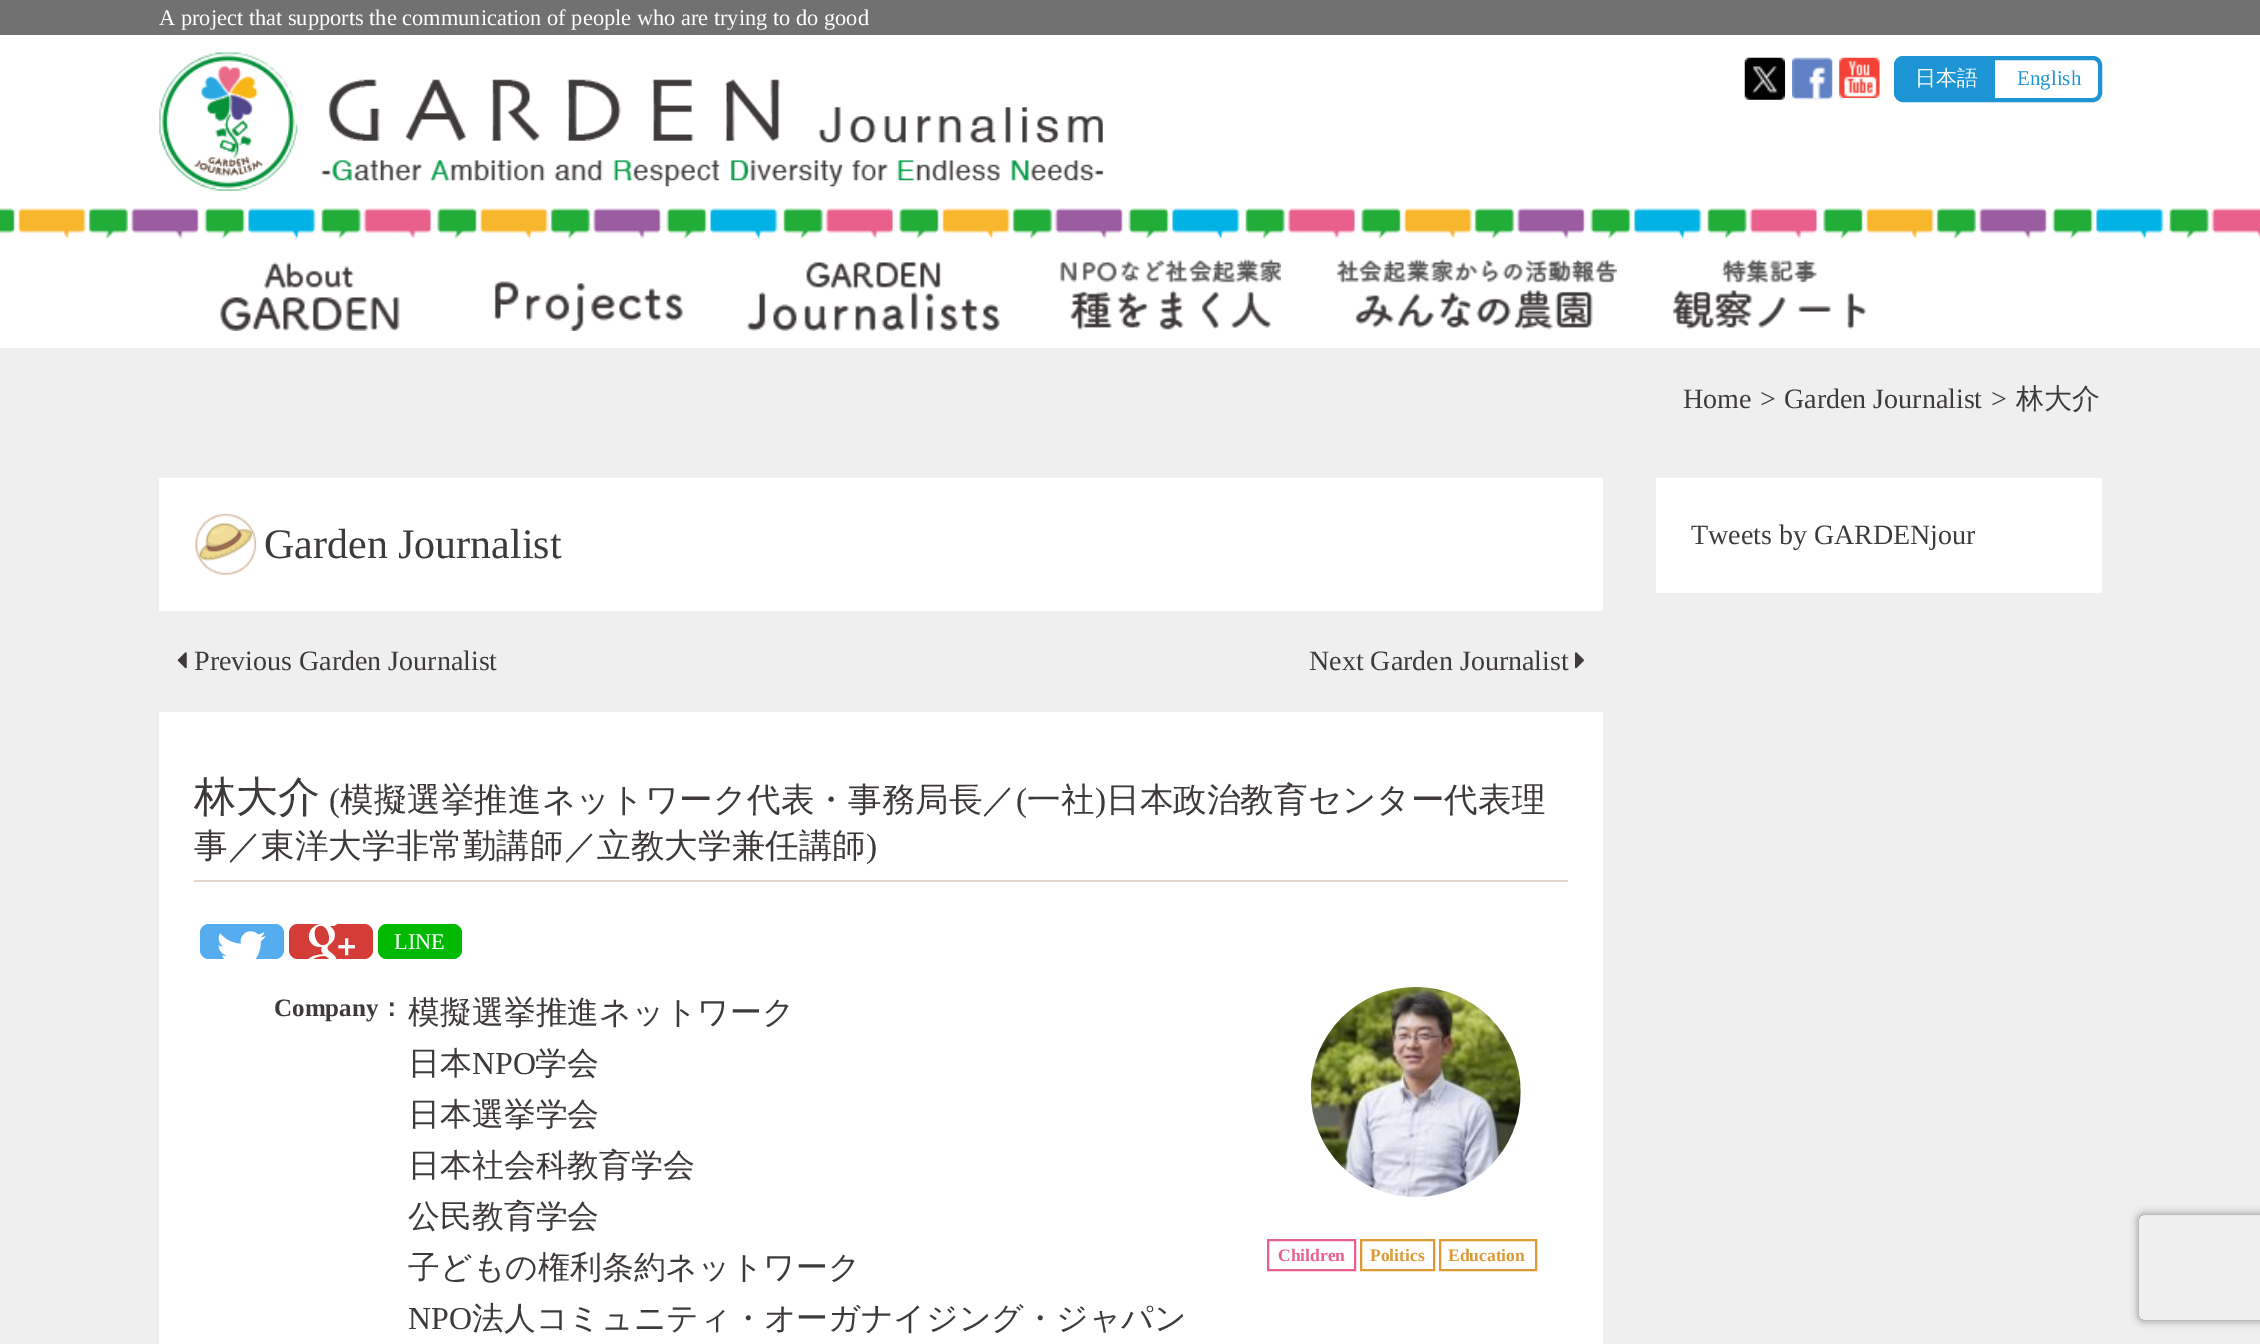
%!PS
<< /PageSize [2260 1344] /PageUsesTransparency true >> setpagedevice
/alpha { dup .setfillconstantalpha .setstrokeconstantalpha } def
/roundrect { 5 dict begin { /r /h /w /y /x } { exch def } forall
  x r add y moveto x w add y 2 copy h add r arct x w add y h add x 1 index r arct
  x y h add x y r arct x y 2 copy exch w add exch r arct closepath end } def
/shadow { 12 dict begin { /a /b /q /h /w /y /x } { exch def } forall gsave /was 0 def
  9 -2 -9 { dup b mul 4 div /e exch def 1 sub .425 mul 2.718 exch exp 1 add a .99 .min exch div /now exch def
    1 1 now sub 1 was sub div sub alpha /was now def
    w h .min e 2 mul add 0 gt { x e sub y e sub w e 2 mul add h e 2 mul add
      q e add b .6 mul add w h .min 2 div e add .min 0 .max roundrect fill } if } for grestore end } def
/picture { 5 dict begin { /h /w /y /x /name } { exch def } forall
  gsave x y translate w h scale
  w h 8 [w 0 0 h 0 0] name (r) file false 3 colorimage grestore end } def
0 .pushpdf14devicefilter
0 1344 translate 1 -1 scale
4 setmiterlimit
0.937 setgray
0 0 2260 1344 rectfill
1 setgray
0 35 2260 313 rectfill
0.447 0.443 0.443 setrgbcolor
0 0 2260 35 rectfill
/LiberationSerif-Regular [22.4 0 0 -22.4 0 0] selectfont
1 setgray
159 25 moveto (A project that supports the communication of people who are trying to do good) show
(img1.rgb) 0 208 2260 31 picture
(img2.rgb) 159 52 945 139 picture
(img3.rgb) 1744 57 41 43 picture
(img4.rgb) 1792 57 41 43 picture
(img5.rgb) 1839 57 41 41 picture
0.114 0.584 0.831 setrgbcolor
4 setlinewidth
1896 58 204 42 7 roundrect stroke
1898 60 97 38 rectfill
/WenQuanYiZenHei-Medium [21 0 0 -21 0 0] selectfont
1 setgray
1915 85 moveto (日本語) show
/LiberationSerif-Regular [21 0 0 -21 0 0] selectfont
0.114 0.584 0.831 setrgbcolor
2017 85 moveto (English) show
(img6.rgb) 220 262 180 69 picture
(img7.rgb) 493 281 190 50 picture
(img8.rgb) 746 262 254 69 picture
(img9.rgb) 1060 258 221 72 picture
(img10.rgb) 1337 258 280 72 picture
(img11.rgb) 1673 258 193 72 picture
/LiberationSerif-Regular [28 0 0 -28 0 0] selectfont
0.243 0.227 0.224 setrgbcolor
1683 408 moveto (Home) show
1760 408 moveto (>) show
1784 408 moveto (Garden Journalist) show
1991 408 moveto (>) show
/WenQuanYiZenHei-Medium [28 0 0 -28 0 0] selectfont
2016 408 moveto (林大介) show
1 setgray
159 478 1444 133 rectfill
(img12.rgb) 194 513 63 63 picture
/LiberationSerif-Regular [42 0 0 -42 0 0] selectfont
0.243 0.227 0.224 setrgbcolor
264 558 moveto (Garden Journalist) show
(img13.rgb) 177 652 10 17 picture
/LiberationSerif-Regular [28 0 0 -28 0 0] selectfont
194 670 moveto (Previous Garden Journalist) show
1309 670 moveto (Next Garden Journalist) show
(img14.rgb) 1575 652 9 17 picture
1 setgray
159 712 1444 632 rectfill
0.89 0.835 0.804 setrgbcolor
194 880 1374 2 rectfill
/WenQuanYiZenHei-Medium [42 0 0 -42 0 0] selectfont
0.243 0.227 0.224 setrgbcolor
194 811 moveto (林大介) show
/LiberationSerif-Regular [33.6 0 0 -33.6 0 0] selectfont
329 811 moveto (\() show
/WenQuanYiZenHei-Medium [33.6 0 0 -33.6 0 0] selectfont
340 811 moveto (模擬選挙推進ネットワーク代表・事務局長／) show
/LiberationSerif-Regular [33.6 0 0 -33.6 0 0] selectfont
1016 811 moveto (\() show
/WenQuanYiZenHei-Medium [33.6 0 0 -33.6 0 0] selectfont
1027 811 moveto (一社) show
/LiberationSerif-Regular [33.6 0 0 -33.6 0 0] selectfont
1095 811 moveto (\)) show
/WenQuanYiZenHei-Medium [33.6 0 0 -33.6 0 0] selectfont
1106 811 moveto (日本政治教育センター代表理) show
194 857 moveto (事／東洋大学非常勤講師／立教大学兼任講師) show
/LiberationSerif-Regular [33.6 0 0 -33.6 0 0] selectfont
866 857 moveto (\)) show
0.333 0.675 0.933 setrgbcolor
200 924 84 35 9 roundrect fill
(img15.rgb) 218 931 48 28 picture
0.831 0.239 0.216 setrgbcolor
289 924 84 35 9 roundrect fill
(img16.rgb) 308 924 47 35 picture
0 0.725 0 setrgbcolor
378 924 84 35 9 roundrect fill
/LiberationSerif-Regular [22.4 0 0 -22.4 0 0] selectfont
1 setgray
394 949 moveto (LINE) show
/LiberationSerif-Bold [25 0 0 -25 0 0] selectfont
0.243 0.227 0.224 setrgbcolor
274 1016 moveto (Company) show
/WenQuanYiZenHei-Bold [25 0 0 -25 0 0] selectfont
379 1016 moveto (：) show
/WenQuanYiZenHei-Medium [31.9 0 0 -31.9 0 0] selectfont
408 1023 moveto (模擬選挙推進ネットワーク) show
408 1074 moveto (日本) show
/LiberationSerif-Regular [31.9 0 0 -31.9 0 0] selectfont
472 1074 moveto (NPO) show
/WenQuanYiZenHei-Medium [31.9 0 0 -31.9 0 0] selectfont
535 1074 moveto (学会) show
408 1125 moveto (日本選挙学会) show
408 1176 moveto (日本社会科教育学会) show
408 1227 moveto (公民教育学会) show
408 1278 moveto (子どもの権利条約ネットワーク) show
/LiberationSerif-Regular [31.9 0 0 -31.9 0 0] selectfont
408 1329 moveto (NPO) show
/WenQuanYiZenHei-Medium [31.9 0 0 -31.9 0 0] selectfont
472 1329 moveto (法人コミュニティ・オーガナイジング・ジャパン) show
(img17.rgb) 1310 987 211 210 picture
0.918 0.376 0.549 setrgbcolor
2 setlinewidth
1268 1240 87 30 rectstroke
/LiberationSerif-Bold [17.5 0 0 -17.5 0 0] selectfont
1278 1261 moveto (Children) show
0.867 0.6 0.2 setrgbcolor
1361 1240 73 30 rectstroke
1370 1261 moveto (Politics) show
1440 1240 96 30 rectstroke
1448 1261 moveto (Education) show
1 setgray
1656 478 446 115 rectfill
/LiberationSerif-Regular [28 0 0 -28 0 0] selectfont
0.243 0.227 0.224 setrgbcolor
1691 544 moveto (Tweets by GARDENjour) show
gsave
newpath 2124 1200 moveto 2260 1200 lineto 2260 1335 lineto 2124 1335 lineto closepath 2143 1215 moveto 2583 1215 lineto 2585 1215 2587 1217 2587 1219 curveto 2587 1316 lineto 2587 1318 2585 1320 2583 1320 curveto 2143 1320 lineto 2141 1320 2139 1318 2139 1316 curveto 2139 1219 lineto 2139 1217 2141 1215 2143 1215 curveto closepath eoclip newpath
0.502 setgray
2139 1215 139 105 4 4.5 1 shadow
grestore
.poppdf14devicefilter showpage
